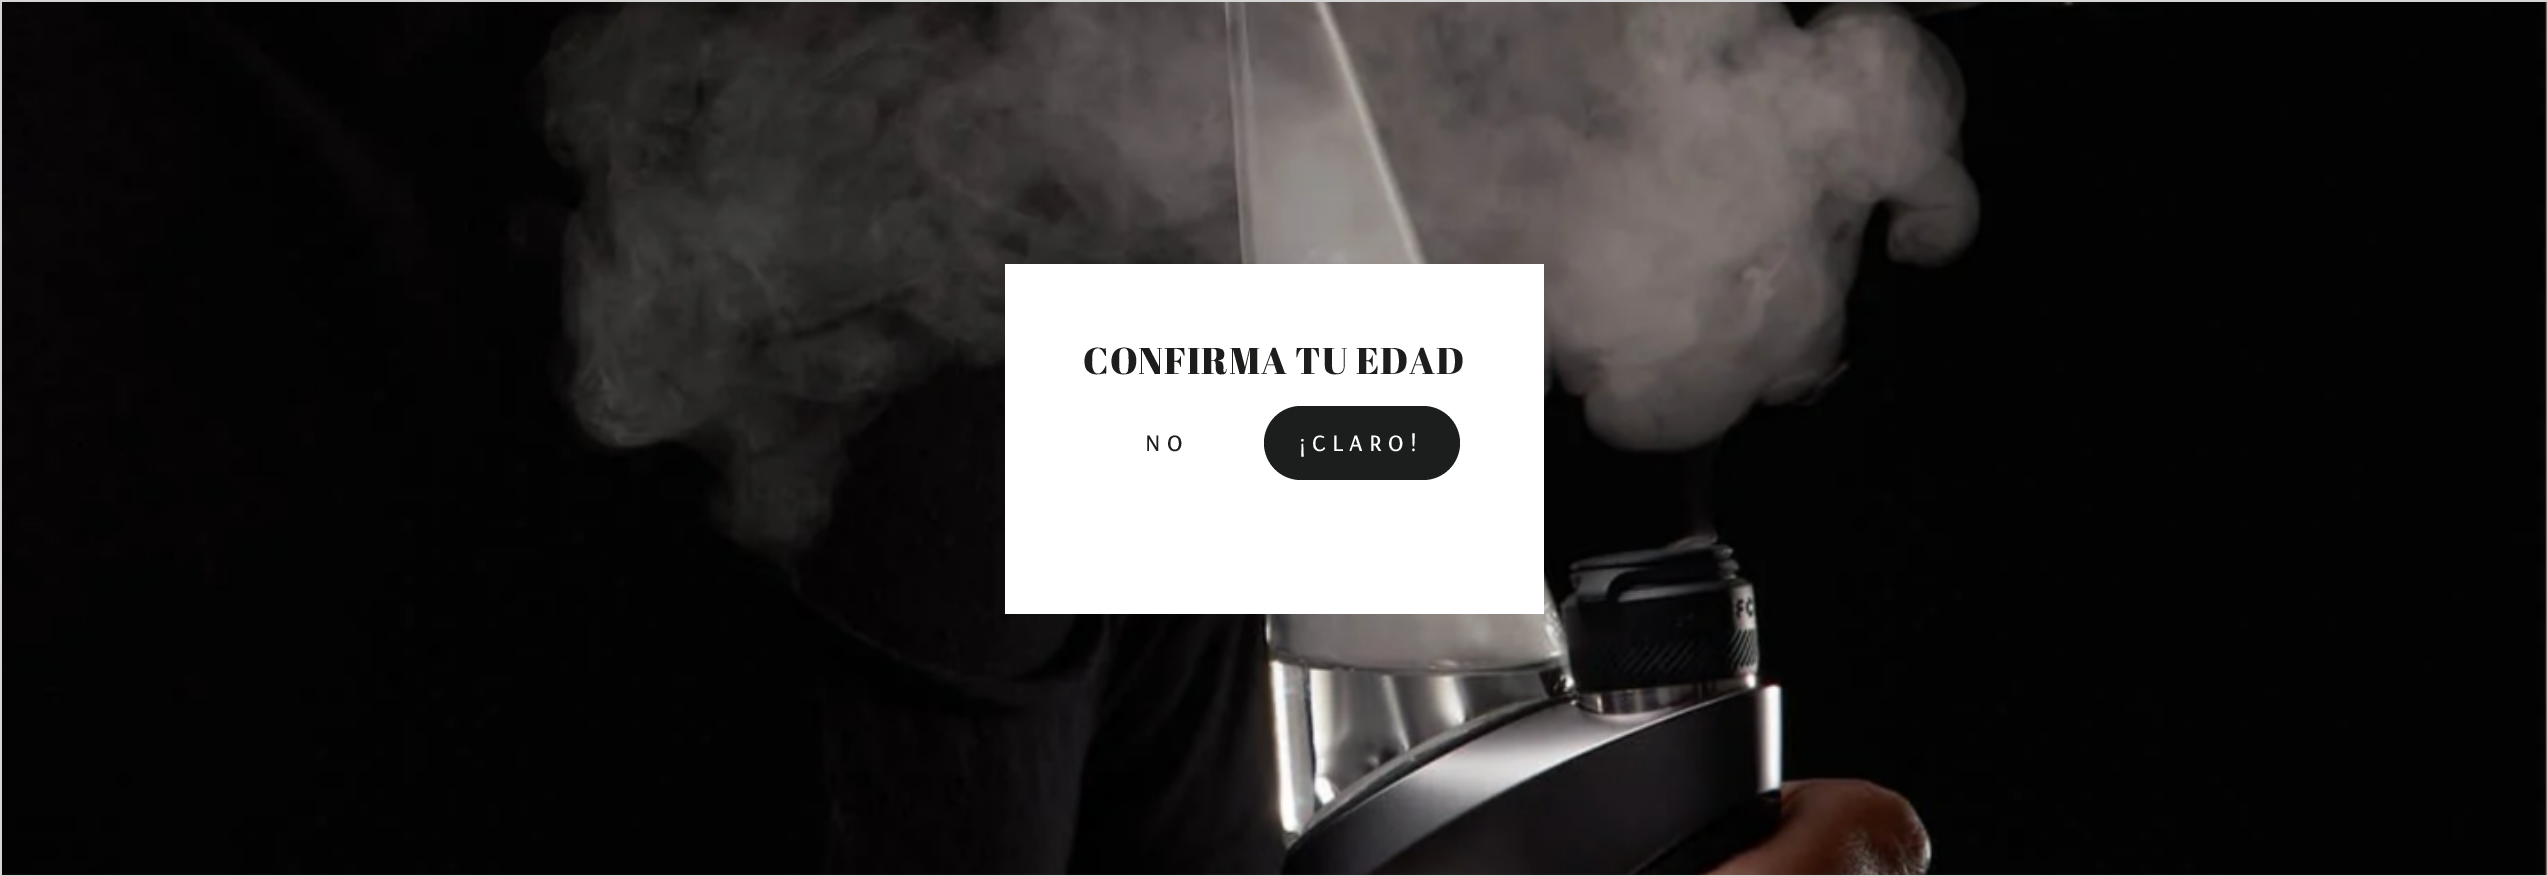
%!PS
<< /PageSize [2547 876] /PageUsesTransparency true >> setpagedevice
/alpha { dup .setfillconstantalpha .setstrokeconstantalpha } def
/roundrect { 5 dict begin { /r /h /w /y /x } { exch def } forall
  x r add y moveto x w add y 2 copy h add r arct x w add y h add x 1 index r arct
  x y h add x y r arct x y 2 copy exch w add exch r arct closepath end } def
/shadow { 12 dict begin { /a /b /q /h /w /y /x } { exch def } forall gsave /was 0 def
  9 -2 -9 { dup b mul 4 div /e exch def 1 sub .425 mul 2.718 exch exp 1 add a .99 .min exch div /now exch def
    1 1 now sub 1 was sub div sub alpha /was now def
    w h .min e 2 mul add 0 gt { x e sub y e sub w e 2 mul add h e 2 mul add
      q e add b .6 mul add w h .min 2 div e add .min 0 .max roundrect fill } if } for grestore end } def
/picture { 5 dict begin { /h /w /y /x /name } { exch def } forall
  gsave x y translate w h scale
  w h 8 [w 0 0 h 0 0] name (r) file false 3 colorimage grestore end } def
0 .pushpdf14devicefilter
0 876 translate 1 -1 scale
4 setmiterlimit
0.396 setgray
0 0 2547 876 rectfill
0.835 setgray
2 setlinewidth
1 1 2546 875 rectstroke
(img1.rgb) 2 2 2545 873 picture
0 setgray
1005 291 539 350 0 39.5 0.1 shadow
1 setgray
1005 264 539 350 rectfill
/AbrilFatface-Regular [37.25 0 0 -37.25 0 0] selectfont
0.114 0.114 0.11 setrgbcolor
1083 374 moveto 0.9 0 (CONFIRMA TU EDAD) ashow
/Arsenal-Bold [22.75 0 0 -22.75 0 0] selectfont
1145 451 moveto 6.75 0 (NO) ashow
0.11 0.114 0.114 setrgbcolor
1264 406 196 74 37 roundrect fill
1 setgray
1299 451 moveto 6.75 0 (¡CLARO!) ashow
.poppdf14devicefilter showpage
